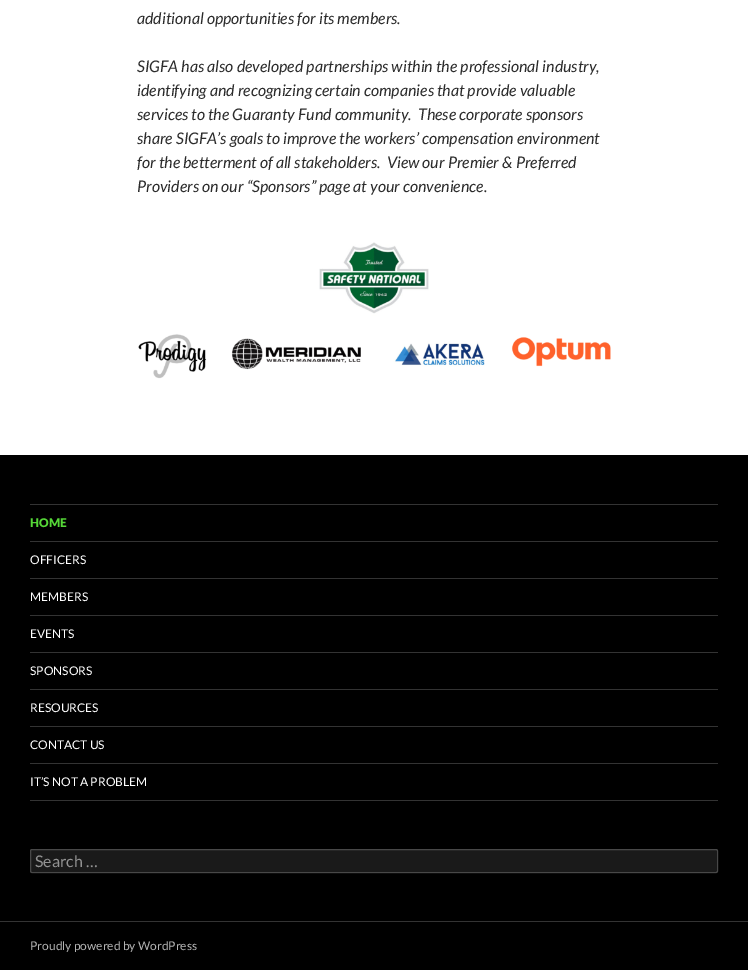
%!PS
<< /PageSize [748 970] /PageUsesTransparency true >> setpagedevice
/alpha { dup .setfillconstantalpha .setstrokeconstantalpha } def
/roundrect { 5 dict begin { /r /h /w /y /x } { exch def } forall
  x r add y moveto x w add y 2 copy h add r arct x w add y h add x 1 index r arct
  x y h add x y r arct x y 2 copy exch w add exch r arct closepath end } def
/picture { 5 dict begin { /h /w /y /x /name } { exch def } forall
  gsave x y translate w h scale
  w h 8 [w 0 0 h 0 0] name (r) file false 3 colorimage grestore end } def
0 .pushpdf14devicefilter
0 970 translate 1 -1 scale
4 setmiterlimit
1 setgray
0 0 748 970 rectfill
/Lato-Italic [16 0 0 -16 0 0] selectfont
0.169 setgray
137 24 moveto (additional opportunities for its members.) show
137 72 moveto (SIGFA has also developed partnerships within the professional industry,) show
137 96 moveto (identifying and recognizing certain companies that provide valuable) show
137 120 moveto (services to the Guaranty Fund community.  These corporate sponsors) show
137 144 moveto (share SIGFA’s goals to improve the workers’ compensation environment) show
137 168 moveto (for the betterment of all stakeholders.  View our Premier & Preferred) show
137 192 moveto (Providers on our “Sponsors” page at your convenience.) show
(img1.rgb) 138 242 473 137 picture
0 setgray
0 455 748 466 rectfill
0.2 setgray
0 921 748 1 rectfill
30 800 688 1 rectfill
30 504 688 1 rectfill
/Lato-Black [12 0 0 -12 0 0] selectfont
0.333 0.843 0.216 setrgbcolor
30 527 moveto (HOME) show
0.2 setgray
30 541 688 1 rectfill
/Lato-Regular [12 0 0 -12 0 0] selectfont
1 setgray
30 564 moveto (OFFICERS) show
0.2 setgray
30 578 688 1 rectfill
1 setgray
30 601 moveto (MEMBERS) show
0.2 setgray
30 615 688 1 rectfill
1 setgray
30 638 moveto (EVENTS) show
0.2 setgray
30 652 688 1 rectfill
1 setgray
30 675 moveto (SPONSORS) show
0.2 setgray
30 689 688 1 rectfill
1 setgray
30 712 moveto (RESOURCES) show
0.2 setgray
30 726 688 1 rectfill
1 setgray
30 749 moveto (CONTACT US) show
0.2 setgray
30 763 688 1 rectfill
1 setgray
30 786 moveto (IT’S NOT A PROBLEM) show
0.102 setgray
30 849 688 24 2 roundrect fill
0.2 alpha
1 setgray
30.5 849.5 687 23 1.5 roundrect stroke
/Lato-Regular [16 0 0 -16 0 0] selectfont
1 alpha
0.576 setgray
35 867 moveto (Search …) show
0 setgray
0 922 748 48 rectfill
/Lato-Regular [12 0 0 -12 0 0] selectfont
0.702 setgray
30 950 moveto (Proudly powered by WordPress) show
.poppdf14devicefilter showpage
